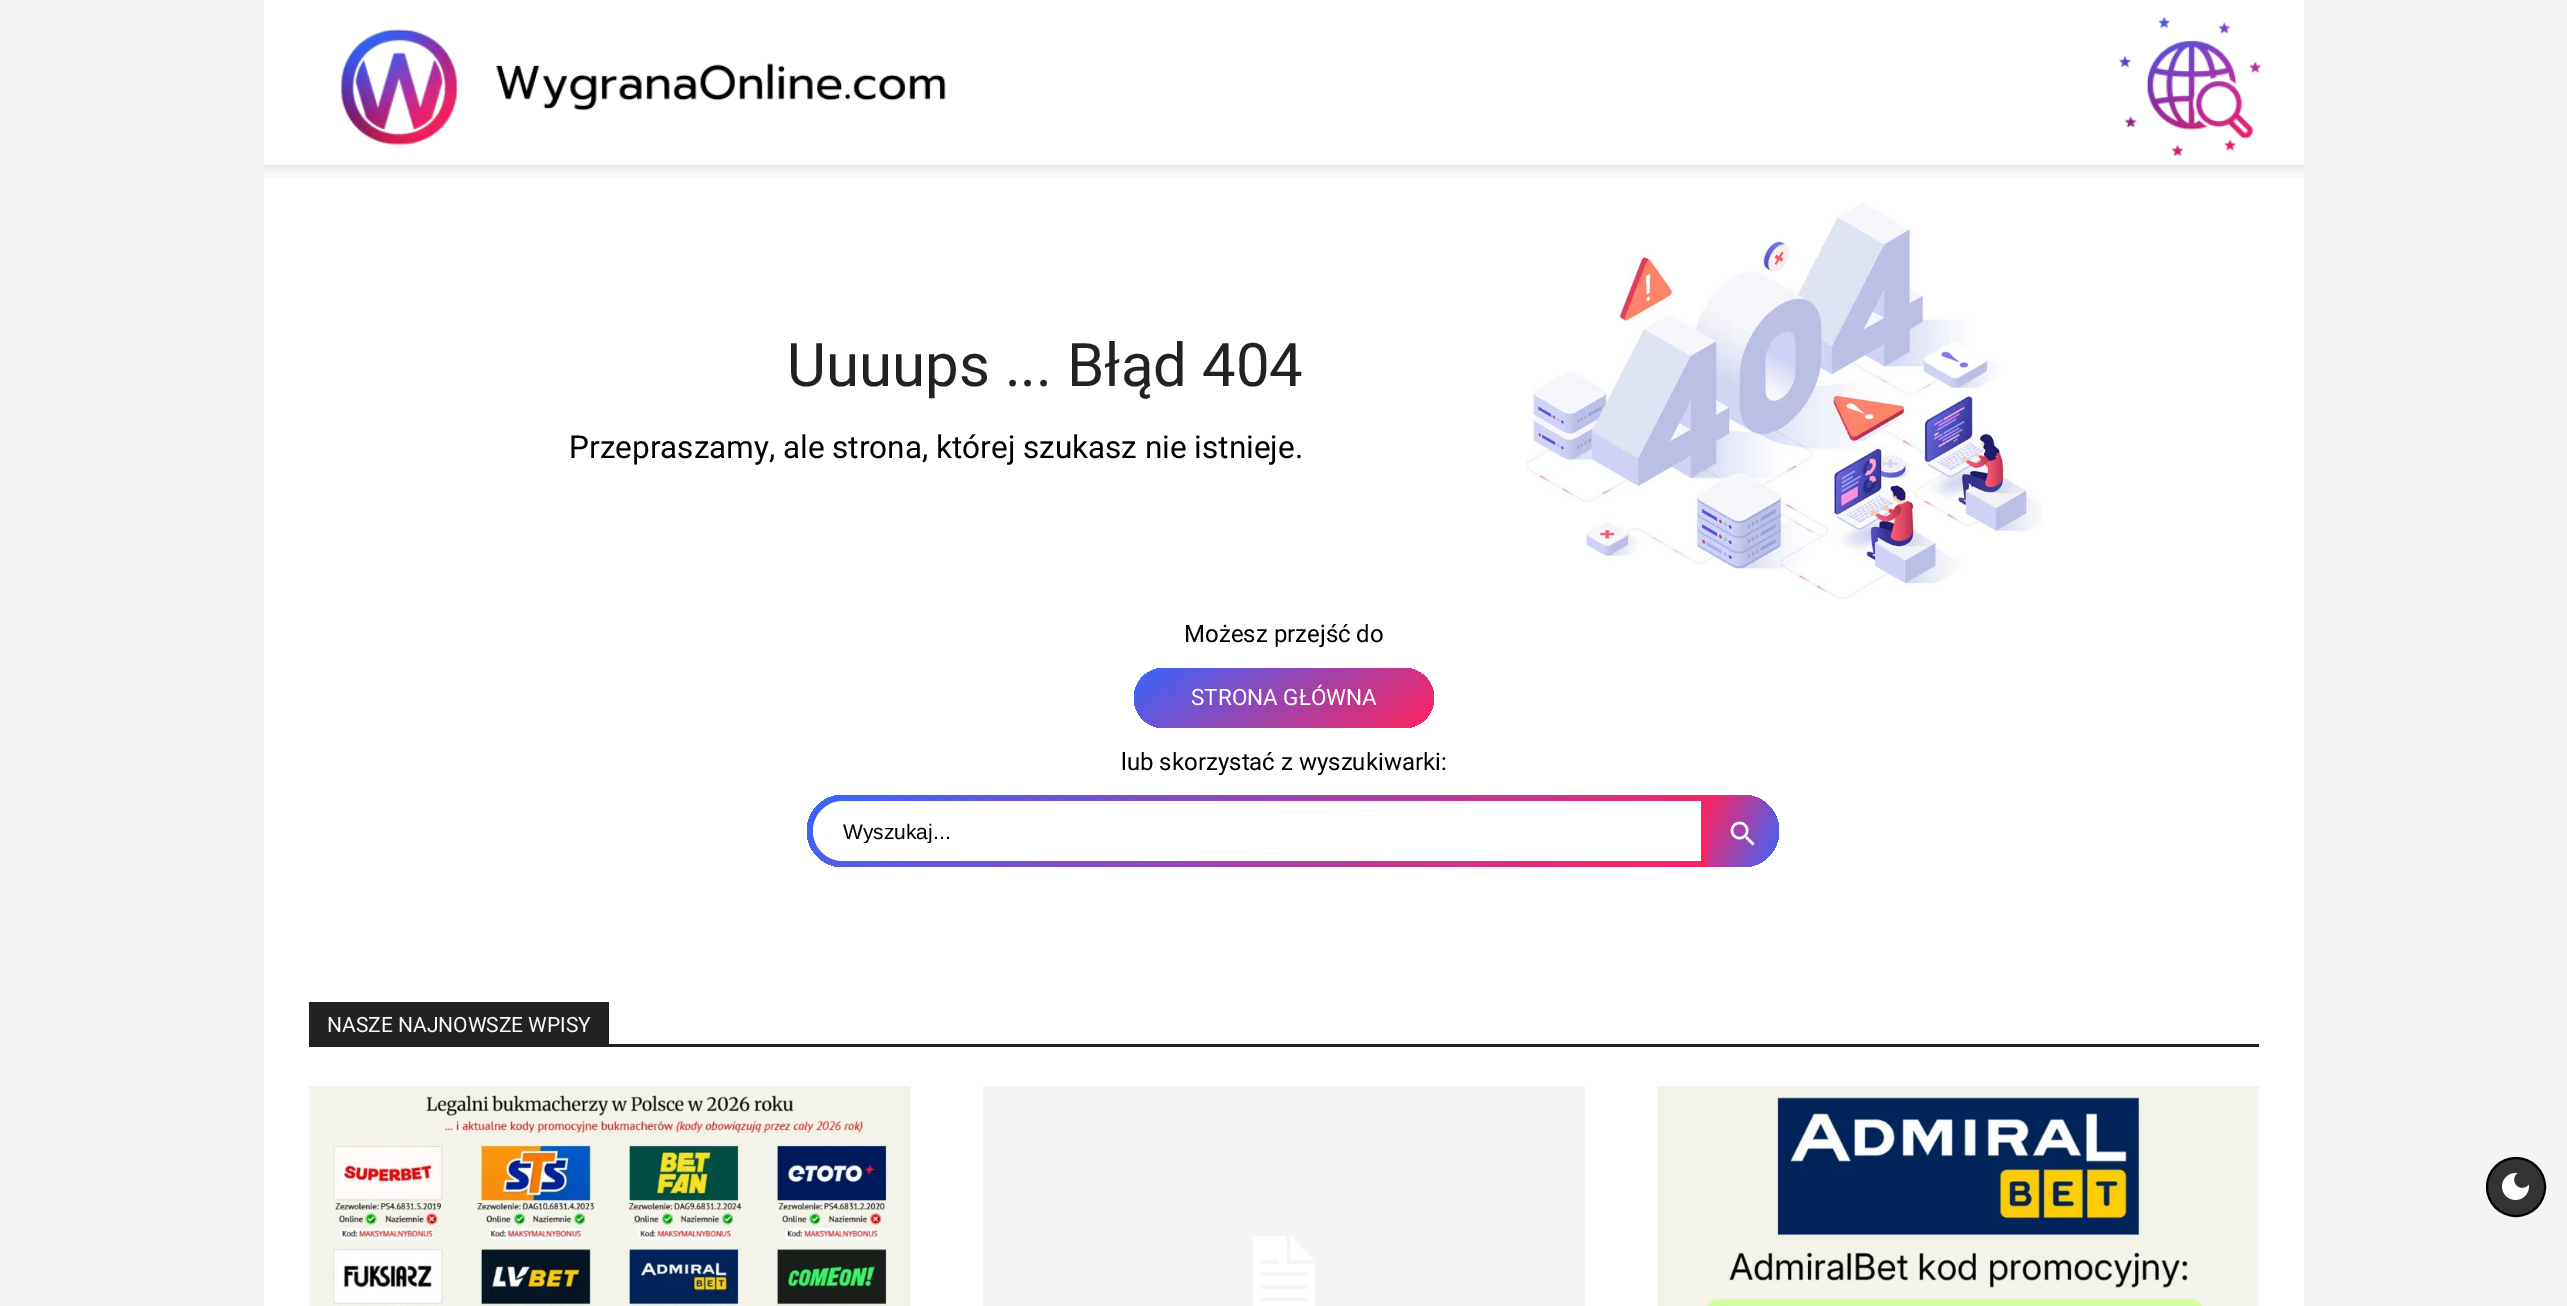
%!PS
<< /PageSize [2567 1306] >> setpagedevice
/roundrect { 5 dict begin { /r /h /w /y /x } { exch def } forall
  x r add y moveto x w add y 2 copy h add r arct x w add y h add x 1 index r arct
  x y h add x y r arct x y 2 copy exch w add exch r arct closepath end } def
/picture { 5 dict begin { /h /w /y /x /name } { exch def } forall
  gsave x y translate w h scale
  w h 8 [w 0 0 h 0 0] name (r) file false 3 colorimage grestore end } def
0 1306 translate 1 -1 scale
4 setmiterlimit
0.953 setgray
0 0 2567 1306 rectfill
1 setgray
264 0 2040 1306 rectfill
(img1.rgb) 2119 17 143 140 picture
(img2.rgb) 341 29 117 116 picture
(img3.rgb) 496 63 450 48 picture
(img4.rgb) 264 165 2040 13 picture
/Roboto-Regular [60 0 0 -60 0 0] selectfont
0.133 setgray
787 386 moveto (Uuuups ... Błąd 404) show
(img5.rgb) 1526 202 517 397 picture
/Roboto-Regular [31.5 0 0 -31.5 0 0] selectfont
0 setgray
569 458 moveto (Przepraszamy, ale strona, której szukasz nie istnieje.) show
/Roboto-Regular [24 0 0 -24 0 0] selectfont
1184 642 moveto (Możesz przejść do) show
gsave 1134 668 300 60 30 roundrect clip newpath
<< /ShadingType 2 /ColorSpace /DeviceRGB /Coords [1218 607 1350 788] /Extend [true true] /Function << /FunctionType 2 /Domain [0 1] /C0 [0.224 0.4 0.992] /C1 [1 0.133 0.373] /N 1 >> >> shfill grestore
/Roboto-Regular [22.5 0 0 -22.5 0 0] selectfont
1 setgray
1191 705 moveto (STRONA GŁÓWNA) show
/Roboto-Regular [24 0 0 -24 0 0] selectfont
0 setgray
1121 770 moveto (lub skorzystać z wyszukiwarki:) show
gsave newpath 843 795 moveto 1707 795 lineto 1707 867 lineto 843 867 lineto 823 867 807 851 807 831 curveto 807 811 823 795 843 795 curveto closepath clip newpath
<< /ShadingType 2 /ColorSpace /DeviceRGB /Coords [1084 593 1430 1069] /Extend [true true] /Function << /FunctionType 2 /Domain [0 1] /C0 [0.224 0.4 0.992] /C1 [1 0.133 0.373] /N 1 >> >> shfill grestore
1 setgray
newpath 843 801 moveto 1701 801 lineto 1701 861 lineto 843 861 lineto 826.5 861 813 847.5 813 831 curveto 813 814.5 826.5 801 843 801 curveto closepath fill
gsave
843 819 828 24 rectclip
/LiberationSans-Regular [21 0 0 -21 0 0] selectfont
0 setgray
843 839 moveto (Wyszukaj...) show
grestore
gsave newpath 1707 795 moveto 1743 795 lineto 1763 795 1779 811 1779 831 curveto 1779 851 1763 867 1743 867 curveto 1707 867 lineto closepath clip newpath
<< /ShadingType 2 /ColorSpace /DeviceRGB /Coords [1786 849 1700 813] /Extend [true true] /Function << /FunctionType 2 /Domain [0 1] /C0 [0.224 0.4 0.992] /C1 [1 0.133 0.373] /N 1 >> >> shfill grestore
(img6.rgb) 1730 821 25 25 picture
0.133 setgray
309 1044 1950 3 rectfill
309 1002 300 42 rectfill
/Roboto-Regular [21 0 0 -21 0 0] selectfont
1 setgray
327 1032 moveto (NASZE NAJNOWSZE WPISY) show
(img7.rgb) 309 1086 602 220 picture
(img8.rgb) 982 1086 604 220 picture
(img9.rgb) 1657 1086 602 220 picture
0.2 setgray
newpath 2516 1187 29 0 360 arc closepath gsave fill grestore
0 setgray
2 setlinewidth
stroke
(img10.rgb) 2502 1173 27 27 picture
showpage
